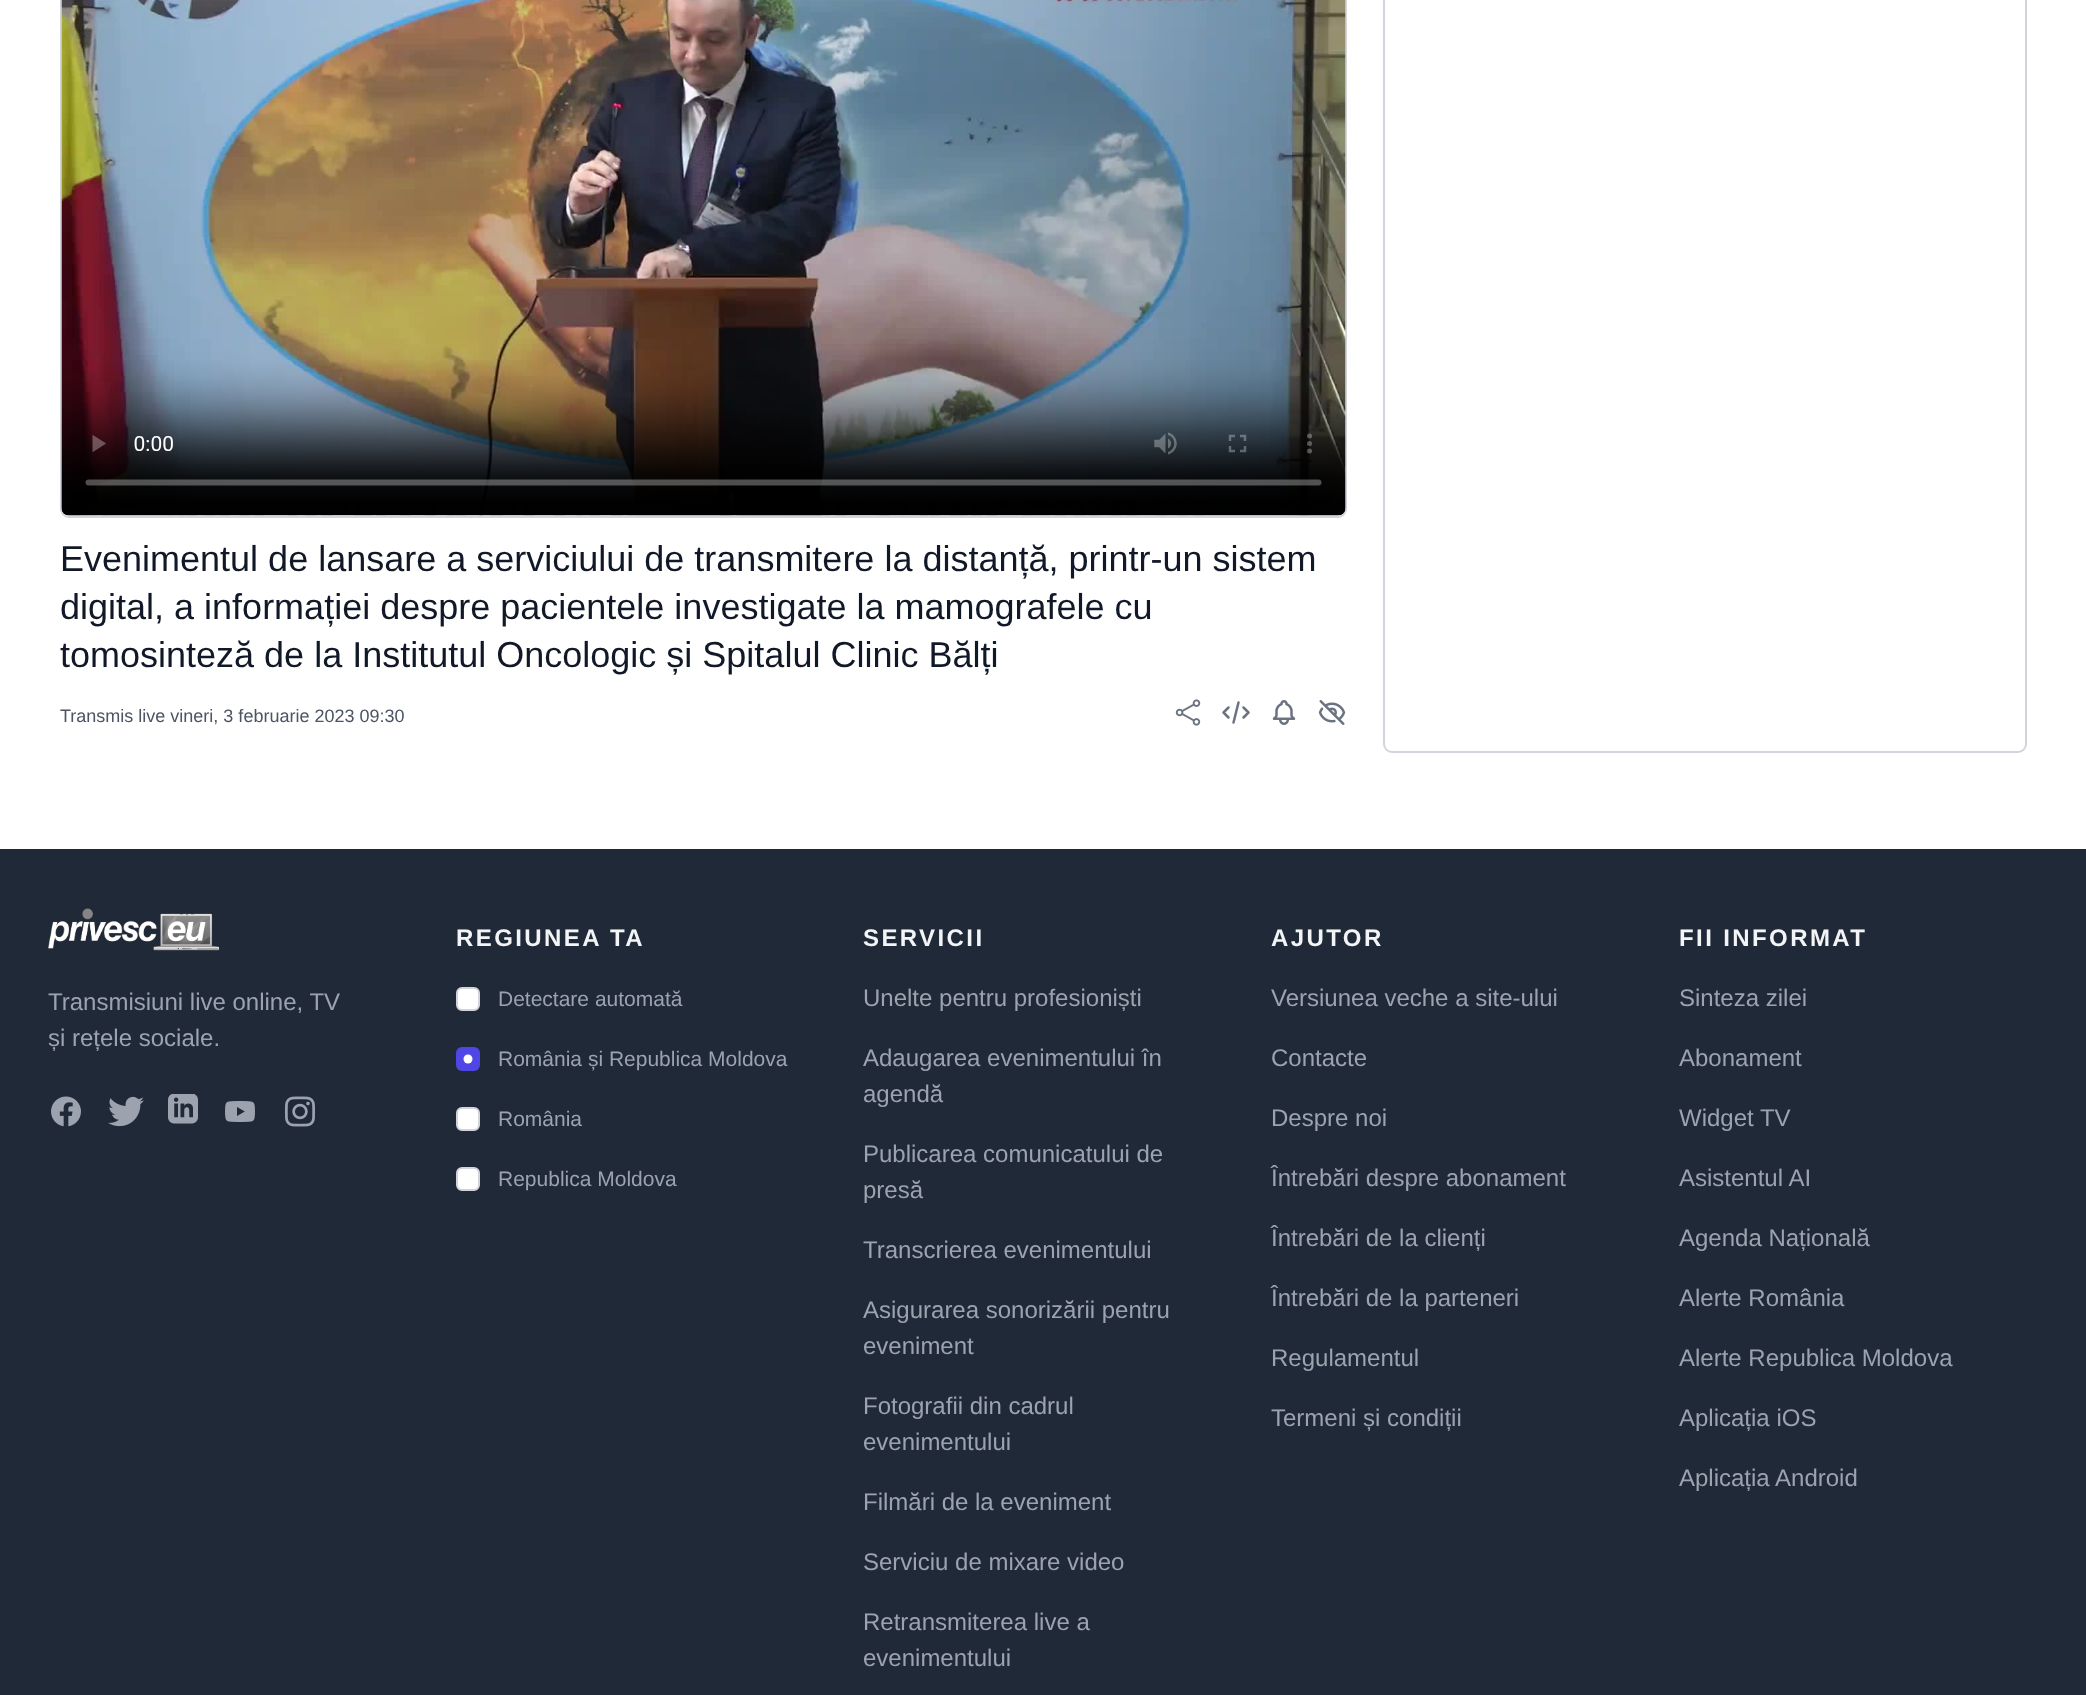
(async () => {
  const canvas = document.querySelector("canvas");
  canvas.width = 2086;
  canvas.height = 1695;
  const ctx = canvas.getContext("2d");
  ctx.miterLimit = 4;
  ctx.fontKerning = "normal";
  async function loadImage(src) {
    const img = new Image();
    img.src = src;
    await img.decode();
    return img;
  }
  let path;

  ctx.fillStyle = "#ffffff";
  ctx.fillRect(0, 0, 2086, 1695);
  ctx.beginPath();
  ctx.roundRect(61, -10, 1285, 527, 8);
  ctx.strokeStyle = "#d1d5db";
  ctx.lineWidth = 2;
  ctx.stroke();
  ctx.drawImage(await loadImage("img/1.png"), 61, 0, 1285, 516);
  ctx.drawImage(await loadImage("img/2.png"), 1175, 699, 26, 27);
  path = new Path2D("M1233.5 722.5L1238.5 702.5M1243.5 707.5L1248.5 712.5L1243.5 717.5M1228.5 717.5L1223.5 712.5L1228.5 707.5");
  ctx.strokeStyle = "#6b7280";
  ctx.lineWidth = 2.5;
  ctx.lineCap = "round";
  ctx.lineJoin = "round";
  ctx.stroke(path);
  ctx.drawImage(await loadImage("img/3.png"), 1272, 700, 24, 25);
  ctx.drawImage(await loadImage("img/4.png"), 1318, 700, 28, 25);
  ctx.beginPath();
  ctx.roundRect(1384, -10, 642, 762, 8);
  ctx.strokeStyle = "#d1d5db";
  ctx.lineWidth = 2;
  ctx.lineJoin = "miter";
  ctx.stroke();
  ctx.fillStyle = "#1f2937";
  ctx.fillRect(0, 849, 2086, 846);
  ctx.drawImage(await loadImage("img/5.png"), 48, 908, 171, 43);
  ctx.drawImage(await loadImage("img/6.png"), 51, 1096, 30, 31);
  ctx.drawImage(await loadImage("img/7.png"), 108, 1096, 36, 31);
  ctx.drawImage(await loadImage("img/8.png"), 168, 1094, 30, 30);
  ctx.drawImage(await loadImage("img/9.png"), 225, 1101, 30, 21);
  ctx.drawImage(await loadImage("img/10.png"), 285, 1096, 30, 31);
  ctx.fillStyle = "#ffffff";
  ctx.beginPath();
  ctx.roundRect(457, 988, 22, 22, 5);
  ctx.fill();
  ctx.stroke();
  ctx.fillStyle = "#4f46e5";
  ctx.beginPath();
  ctx.roundRect(456, 1047, 24, 24, 6);
  ctx.fill();
  ctx.fillStyle = "#ffffff";
  ctx.beginPath();
  ctx.arc(468, 1059, 4.5, 0, Math.PI * 2);
  ctx.fill();
  ctx.beginPath();
  ctx.roundRect(457, 1108, 22, 22, 5);
  ctx.fill();
  ctx.stroke();
  ctx.beginPath();
  ctx.roundRect(457, 1168, 22, 22, 5);
  ctx.fill();
  ctx.stroke();
  ctx.font = "36px Liberation Sans";
  ctx.fillStyle = "#111827";
  for (const [text, x, y] of [
    ["Evenimentul de lansare a serviciului de transmitere la distanță, printr-un sistem", 60, 571],
    ["digital, a informației despre pacientele investigate la mamografele cu", 60, 619],
    ["tomosinteză de la Institutul Oncologic și Spitalul Clinic Bălți", 60, 667],
  ]) {
    ctx.fillText(text, x, y);
  }
  ctx.font = "18px Liberation Sans";
  ctx.fillStyle = "#4b5563";
  ctx.fillText("Transmis live vineri, 3 februarie 2023 09:30", 60, 722);
  ctx.font = "24px Liberation Sans";
  ctx.fillStyle = "#9ca3af";
  ctx.fillText("Transmisiuni live online, TV", 48, 1010);
  ctx.fillText("și rețele sociale.", 48, 1046);
  ctx.letterSpacing = "2.4px";
  ctx.font = "bold 24px Liberation Sans";
  ctx.fillStyle = "#f3f4f6";
  ctx.fillText("REGIUNEA TA", 456, 946);
  ctx.letterSpacing = "0px";
  ctx.font = "21px Liberation Sans";
  ctx.fillStyle = "#9ca3af";
  for (const [text, x, y] of [
    ["Detectare automată", 498, 1006],
    ["România și Republica Moldova", 498, 1066],
    ["România", 498, 1126],
    ["Republica Moldova", 498, 1186],
  ]) {
    ctx.fillText(text, x, y);
  }
  ctx.letterSpacing = "2.4px";
  ctx.font = "bold 24px Liberation Sans";
  ctx.fillStyle = "#f3f4f6";
  ctx.fillText("SERVICII", 863, 946);
  ctx.letterSpacing = "0px";
  ctx.font = "24px Liberation Sans";
  ctx.fillStyle = "#9ca3af";
  for (const [text, x, y] of [
    ["Unelte pentru profesioniști", 863, 1006],
    ["Adaugarea evenimentului în", 863, 1066],
    ["agendă", 863, 1102],
    ["Publicarea comunicatului de", 863, 1162],
    ["presă", 863, 1198],
    ["Transcrierea evenimentului", 863, 1258],
    ["Asigurarea sonorizării pentru", 863, 1318],
    ["eveniment", 863, 1354],
    ["Fotografii din cadrul", 863, 1414],
    ["evenimentului", 863, 1450],
    ["Filmări de la eveniment", 863, 1510],
    ["Serviciu de mixare video", 863, 1570],
    ["Retransmiterea live a", 863, 1630],
    ["evenimentului", 863, 1666],
  ]) {
    ctx.fillText(text, x, y);
  }
  ctx.letterSpacing = "2.4px";
  ctx.font = "bold 24px Liberation Sans";
  ctx.fillStyle = "#f3f4f6";
  ctx.fillText("AJUTOR", 1271, 946);
  ctx.letterSpacing = "0px";
  ctx.font = "24px Liberation Sans";
  ctx.fillStyle = "#9ca3af";
  for (const [text, x, y] of [
    ["Versiunea veche a site-ului", 1271, 1006],
    ["Contacte", 1271, 1066],
    ["Despre noi", 1271, 1126],
    ["Întrebări despre abonament", 1271, 1186],
    ["Întrebări de la clienți", 1271, 1246],
    ["Întrebări de la parteneri", 1271, 1306],
    ["Regulamentul", 1271, 1366],
    ["Termeni și condiții", 1271, 1426],
  ]) {
    ctx.fillText(text, x, y);
  }
  ctx.letterSpacing = "2.4px";
  ctx.font = "bold 24px Liberation Sans";
  ctx.fillStyle = "#f3f4f6";
  ctx.fillText("FII INFORMAT", 1679, 946);
  ctx.letterSpacing = "0px";
  ctx.font = "24px Liberation Sans";
  ctx.fillStyle = "#9ca3af";
  for (const [text, x, y] of [
    ["Sinteza zilei", 1679, 1006],
    ["Abonament", 1679, 1066],
    ["Widget TV", 1679, 1126],
    ["Asistentul AI", 1679, 1186],
    ["Agenda Națională", 1679, 1246],
    ["Alerte România", 1679, 1306],
    ["Alerte Republica Moldova", 1679, 1366],
    ["Aplicația iOS", 1679, 1426],
    ["Aplicația Android", 1679, 1486],
  ]) {
    ctx.fillText(text, x, y);
  }
})();
